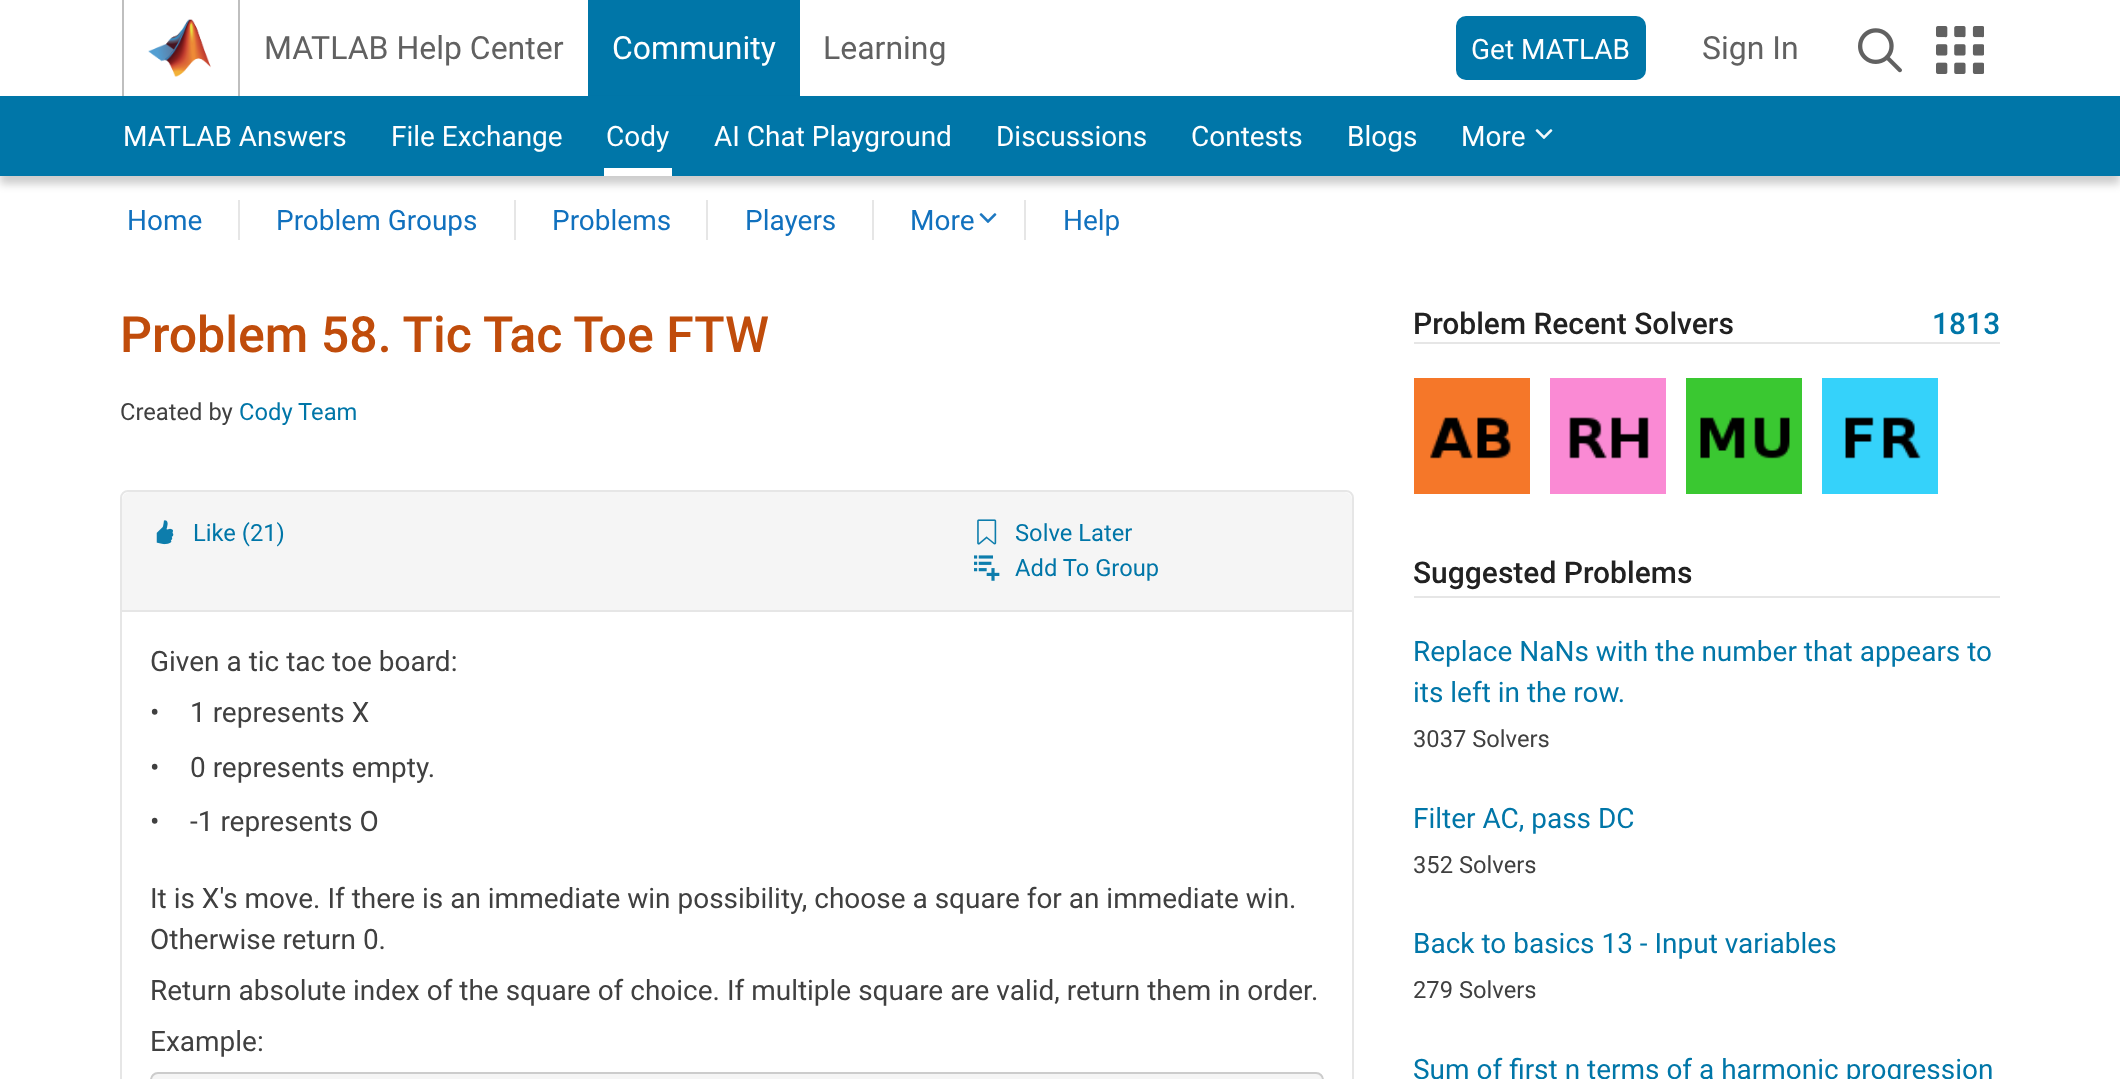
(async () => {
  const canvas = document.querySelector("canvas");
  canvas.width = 2120;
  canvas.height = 1079;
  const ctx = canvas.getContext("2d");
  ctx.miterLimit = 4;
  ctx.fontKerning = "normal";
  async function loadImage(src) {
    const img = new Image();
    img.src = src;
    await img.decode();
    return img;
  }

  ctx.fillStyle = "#ffffff";
  ctx.fillRect(0, 0, 2120, 1079);
  ctx.fillStyle = "#bfbfbf";
  ctx.fillRect(238, 0, 2, 96);
  ctx.fillRect(122, 0, 2, 96);
  ctx.drawImage(await loadImage("img/1.png"), 148, 19, 63, 58);
  ctx.fillStyle = "#0076a8";
  ctx.fillRect(588, 0, 212, 96);
  ctx.beginPath();
  ctx.roundRect(1457, 17, 188, 62, 9);
  ctx.fill();
  ctx.strokeStyle = "#0076a8";
  ctx.lineWidth = 2;
  ctx.stroke();
  ctx.drawImage(await loadImage("img/2.png"), 1858, 28, 44, 45);
  ctx.drawImage(await loadImage("img/3.png"), 1936, 26, 48, 48);
  ctx.fillStyle = "rgba(0, 0, 0, 0.2)";
  ctx.filter = "blur(4px)";
  ctx.beginPath();
  ctx.rect(0, 104, 2120, 80);
  ctx.fill();
  ctx.filter = "none";
  ctx.fillStyle = "#0076a8";
  ctx.fillRect(0, 96, 2120, 80);
  ctx.fillStyle = "#ffffff";
  ctx.fillRect(604, 168, 68, 8);
  ctx.drawImage(await loadImage("img/4.png"), 1535, 129, 18, 10);
  for (const [x, y, w, h, color] of [
    [238, 200, 2, 40, "#e6e6e6"],
    [514, 200, 2, 40, "#e6e6e6"],
    [706, 200, 2, 40, "#e6e6e6"],
    [872, 200, 2, 40, "#e6e6e6"],
  ]) {
    ctx.fillStyle = color;
    ctx.fillRect(x, y, w, h);
  }
  ctx.drawImage(await loadImage("img/5.png"), 979, 213, 18, 10);
  ctx.fillRect(1024, 200, 2, 40);
  ctx.beginPath();
  ctx.roundRect(121, 491, 1232, 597, 7);
  ctx.strokeStyle = "#e6e6e6";
  ctx.stroke();
  ctx.fillStyle = "#f5f5f5";
  ctx.beginPath();
  ctx.roundRect(122, 492, 1230, 120, [8, 8, 0, 0]);
  ctx.fill();
  ctx.fillStyle = "#e6e6e6";
  ctx.fillRect(122, 610, 1230, 2);
  ctx.drawImage(await loadImage("img/6.png"), 156, 520, 18, 25);
  ctx.drawImage(await loadImage("img/7.png"), 977, 519, 20, 26);
  ctx.drawImage(await loadImage("img/8.png"), 974, 555, 26, 26);
  ctx.fillStyle = "#f5f5f5";
  ctx.beginPath();
  ctx.roundRect(151, 1073, 1172, 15, 7);
  ctx.fill();
  ctx.strokeStyle = "#cccccc";
  ctx.stroke();
  ctx.fillStyle = "#e6e6e6";
  ctx.fillRect(1414, 342, 586, 2);
  ctx.drawImage(await loadImage("img/9.png"), 1414, 378, 116, 116);
  ctx.drawImage(await loadImage("img/10.png"), 1550, 378, 116, 116);
  ctx.drawImage(await loadImage("img/11.png"), 1686, 378, 116, 116);
  ctx.drawImage(await loadImage("img/12.png"), 1822, 378, 116, 116);
  ctx.fillRect(1414, 596, 586, 2);
  ctx.font = "32px Roboto";
  ctx.fillStyle = "#616161";
  ctx.fillText("MATLAB Help Center", 264, 59);
  ctx.fillStyle = "#ffffff";
  ctx.fillText("Community", 612, 59);
  ctx.fillStyle = "#616161";
  ctx.fillText("Learning", 823, 59);
  ctx.font = "28px Roboto";
  ctx.fillStyle = "#ffffff";
  ctx.fillText("Get MATLAB", 1471, 59);
  ctx.font = "32px Roboto";
  ctx.fillStyle = "#616161";
  ctx.fillText("Sign In", 1702, 59);
  ctx.font = "28px Roboto";
  ctx.fillStyle = "#ffffff";
  for (const [text, x, y] of [
    ["MATLAB Answers", 123, 146],
    ["File Exchange", 391, 146],
    ["Cody", 606, 146],
    ["AI Chat Playground", 714, 146],
    ["Discussions", 996, 146],
    ["Contests", 1191, 146],
    ["Blogs", 1347, 146],
    ["More", 1461, 146],
  ]) {
    ctx.fillText(text, x, y);
  }
  ctx.fillStyle = "#1171be";
  for (const [text, x, y] of [
    ["Home", 127, 230],
    ["Problem Groups", 276, 230],
    ["Problems", 552, 230],
    ["Players", 745, 230],
    ["More", 910, 230],
    ["Help", 1063, 230],
  ]) {
    ctx.fillText(text, x, y);
  }
  ctx.font = "500 50px Roboto";
  ctx.fillStyle = "#c04c0b";
  ctx.fillText("Problem 58. Tic Tac Toe FTW", 120, 352);
  ctx.font = "23.75px Roboto";
  ctx.fillStyle = "#404040";
  ctx.fillText("Created by", 120, 420);
  ctx.fillStyle = "#0076a8";
  for (const [text, x, y] of [
    ["Cody Team", 239, 420],
    ["Like (21)", 193, 541],
    ["Solve Later", 1015, 541],
    ["Add To Group", 1015, 576],
  ]) {
    ctx.fillText(text, x, y);
  }
  ctx.font = "28px Roboto";
  ctx.fillStyle = "#404040";
  for (const [text, x, y] of [
    ["Given a tic tac toe board:", 150, 671],
    ["•", 150, 722],
    ["1 represents X", 190, 722],
    ["•", 150, 777],
    ["0 represents empty.", 190, 777],
    ["•", 150, 831],
    ["-1 represents O", 190, 831],
    ["It is X's move. If there is an immediate win possibility, choose a square for an immediate win.", 150, 908],
    ["Otherwise return 0.", 150, 949],
    ["Return absolute index of the square of choice. If multiple square are valid, return them in order.", 150, 1000],
    ["Example:", 150, 1051],
  ]) {
    ctx.fillText(text, x, y);
  }
  ctx.font = "500 30px Roboto";
  ctx.fillStyle = "#212121";
  ctx.fillText("Problem Recent Solvers", 1413, 334);
  ctx.fillStyle = "#0076a8";
  ctx.fillText("1813", 1932, 334);
  ctx.fillStyle = "#212121";
  ctx.fillText("Suggested Problems", 1413, 583);
  ctx.font = "28px Roboto";
  ctx.fillStyle = "#0076a8";
  ctx.fillText("Replace NaNs with the number that appears to", 1413, 661);
  ctx.fillText("its left in the row.", 1413, 702);
  ctx.font = "23.75px Roboto";
  ctx.fillStyle = "#404040";
  ctx.fillText("3037 Solvers", 1413, 747);
  ctx.font = "28px Roboto";
  ctx.fillStyle = "#0076a8";
  ctx.fillText("Filter AC, pass DC", 1413, 828);
  ctx.font = "23.75px Roboto";
  ctx.fillStyle = "#404040";
  ctx.fillText("352 Solvers", 1413, 873);
  ctx.font = "28px Roboto";
  ctx.fillStyle = "#0076a8";
  ctx.fillText("Back to basics 13 - Input variables", 1413, 953);
  ctx.font = "23.75px Roboto";
  ctx.fillStyle = "#404040";
  ctx.fillText("279 Solvers", 1413, 998);
  ctx.font = "28px Roboto";
  ctx.fillStyle = "#0076a8";
  ctx.fillText("Sum of first n terms of a harmonic progression", 1413, 1079);
})();
